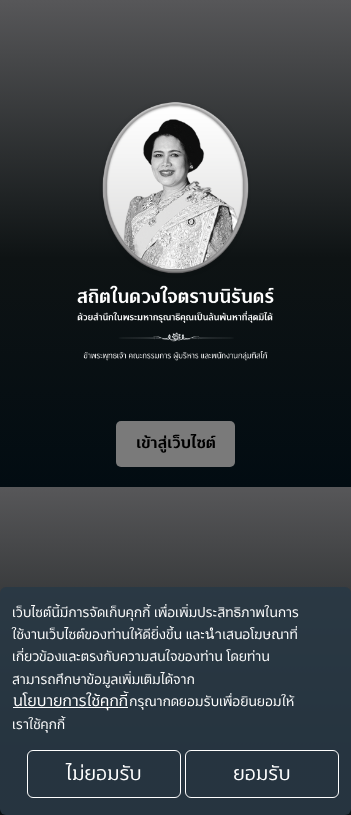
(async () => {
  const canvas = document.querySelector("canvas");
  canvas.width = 351;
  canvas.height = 815;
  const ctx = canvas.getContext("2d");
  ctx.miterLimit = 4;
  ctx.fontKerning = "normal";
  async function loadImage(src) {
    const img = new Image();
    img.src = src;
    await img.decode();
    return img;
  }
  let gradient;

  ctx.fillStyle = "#ffffff";
  ctx.fillRect(0, 0, 351, 815);
  gradient = ctx.createLinearGradient(175, 0, 176, 487);
  gradient.addColorStop(0, "#575759");
  gradient.addColorStop(0.53, "#0e1314");
  gradient.addColorStop(1, "#020c12");
  ctx.fillStyle = gradient;
  ctx.fillRect(0, 0, 351, 487);
  gradient = ctx.createLinearGradient(175, 487, 176, 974);
  gradient.addColorStop(0, "#575759");
  gradient.addColorStop(0.53, "#0e1314");
  gradient.addColorStop(1, "#020c12");
  ctx.fillStyle = gradient;
  ctx.fillRect(0, 487, 351, 328);
  ctx.drawImage(await loadImage("img/1.png"), 77, 102, 197, 259);
  ctx.fillStyle = "#7a7a7a";
  ctx.beginPath();
  ctx.roundRect(116, 421, 119, 46, 5);
  ctx.fill();
  ctx.fillStyle = "rgba(41, 56, 69, 0.9)";
  ctx.beginPath();
  ctx.roundRect(0, 587, 351, 228, 6);
  ctx.fill();
  ctx.fillStyle = "#ffffff";
  ctx.fillRect(13, 707, 115, 1);
  ctx.beginPath();
  ctx.roundRect(27.5, 750.5, 153, 47, 5.5);
  ctx.strokeStyle = "#ffffff";
  ctx.stroke();
  ctx.beginPath();
  ctx.roundRect(185.5, 750.5, 153, 47, 5.5);
  ctx.stroke();
  ctx.font = "bold 16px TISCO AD";
  ctx.fillStyle = "#000000";
  ctx.fillText("เข้าสู่เว็บไซต์", 136, 448);
  ctx.font = "14px TISCO AD";
  ctx.fillStyle = "#ffffff";
  for (const [text, x, y] of [
    ["เว็บไซต์นี้มีการจัดเก็บคุกกี้ เพื่อเพิ่มประสิทธิภาพในการ", 12, 617],
    ["ใช้งานเว็บไซต์ของท่านให้ดียิ่งขึ้น และนำเสนอโฆษณาที่", 12, 639],
    ["เกี่ยวข้องและตรงกับความสนใจของท่าน โดยท่าน", 12, 661],
    ["สามารถศึกษาข้อมูลเพิ่มเติมได้จาก", 12, 684],
  ]) {
    ctx.fillText(text, x, y);
  }
  ctx.font = "16px TISCO AD";
  ctx.fillText("นโยบายการใช้คุกกี้", 13, 706);
  ctx.font = "14px TISCO AD";
  ctx.fillText("กรุณากดยอมรับเพื่อยินยอมให้", 129, 706);
  ctx.fillText("เราใช้คุกกี้", 12, 729);
  ctx.font = "20px TISCO AD";
  ctx.fillText("ไม่ยอมรับ", 66, 780);
  ctx.fillText("ยอมรับ", 233, 780);
})();
